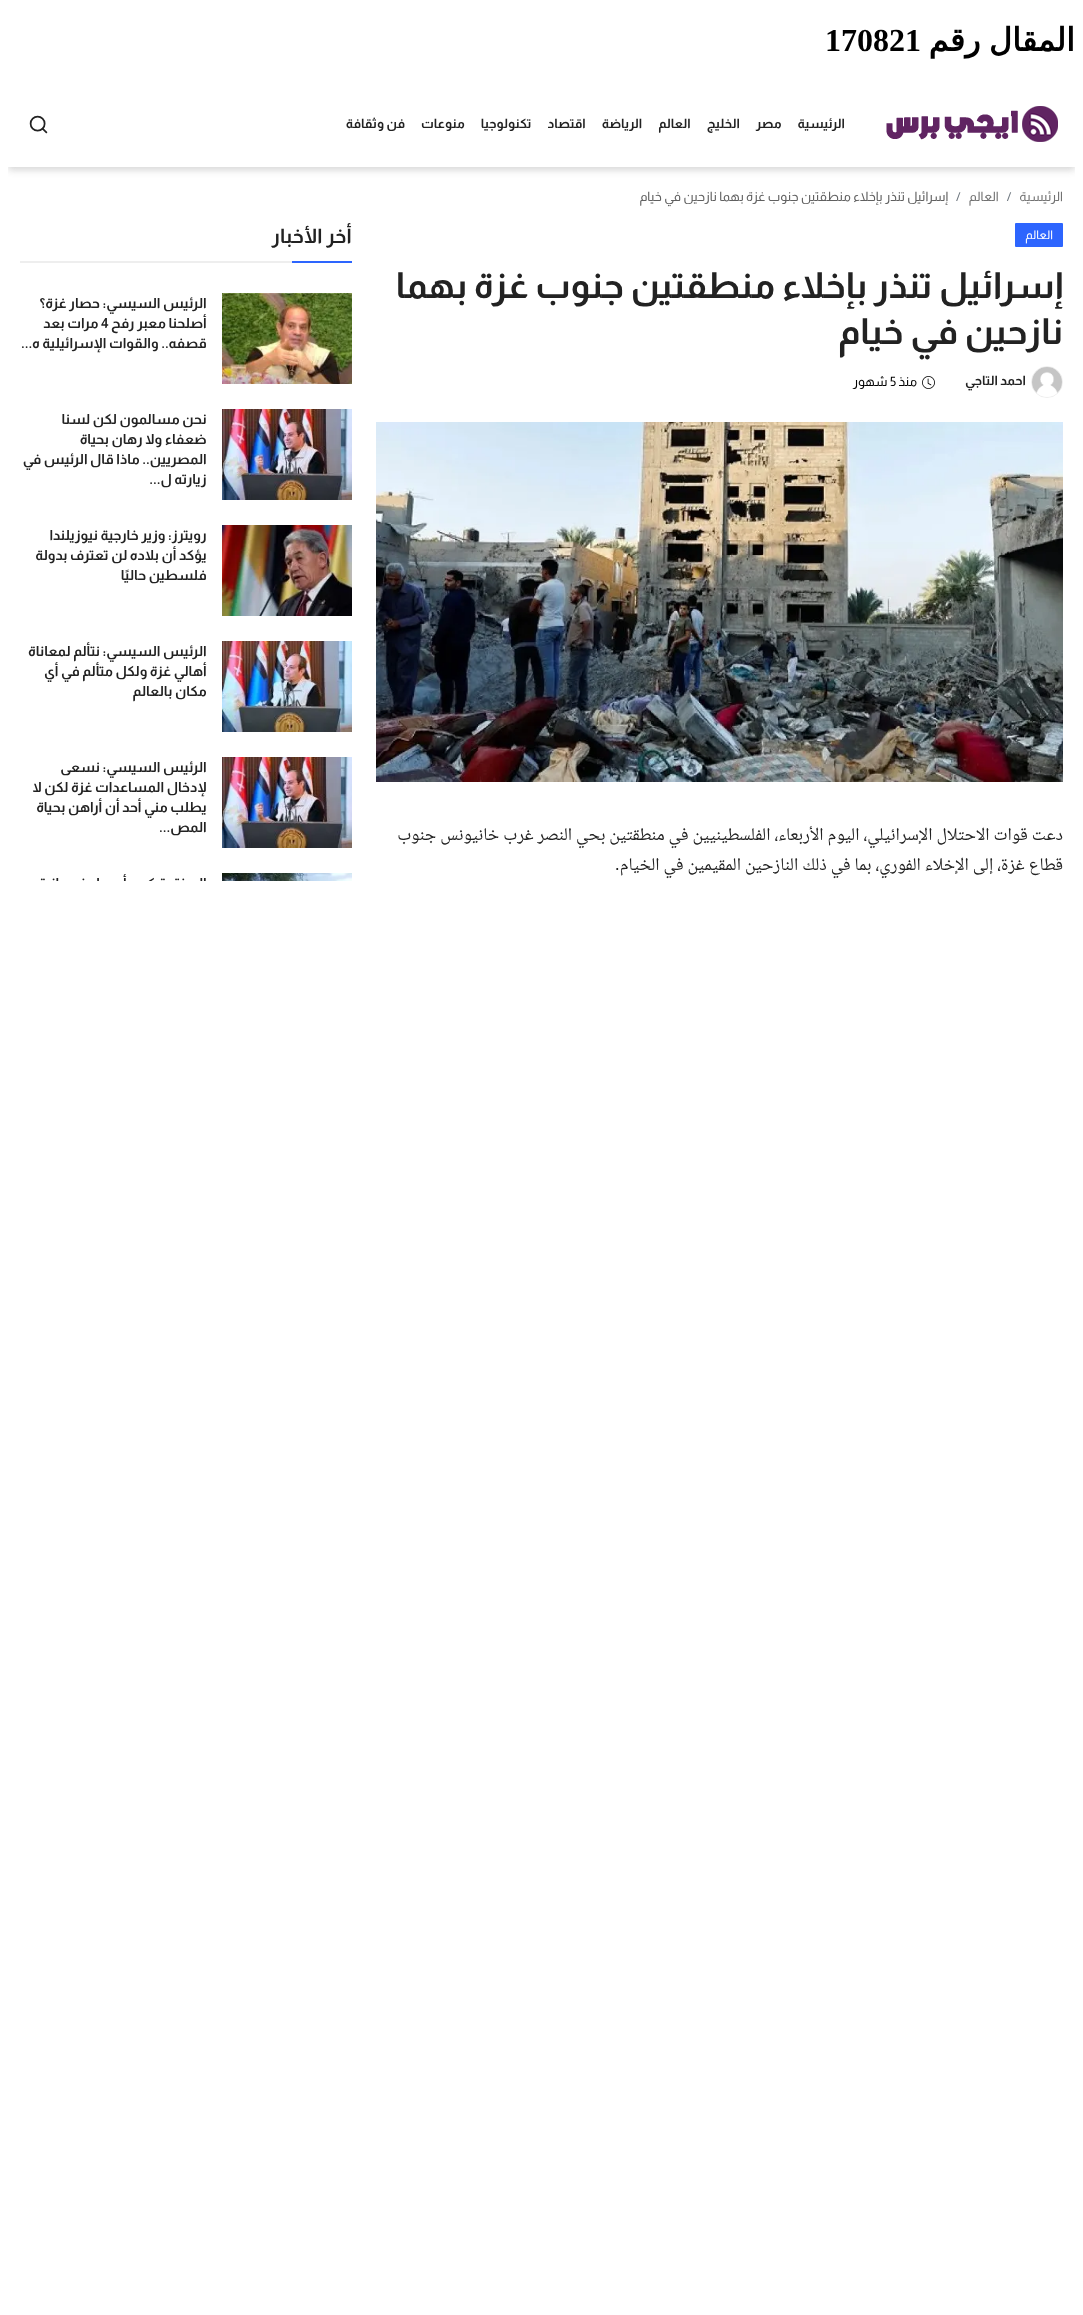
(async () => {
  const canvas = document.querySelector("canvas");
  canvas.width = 1083;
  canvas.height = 2315;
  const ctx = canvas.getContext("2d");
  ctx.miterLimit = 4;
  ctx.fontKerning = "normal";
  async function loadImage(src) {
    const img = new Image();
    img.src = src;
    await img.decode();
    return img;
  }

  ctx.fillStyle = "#ffffff";
  ctx.fillRect(0, 0, 1083, 2315);
  ctx.drawImage(await loadImage("img/1.png"), 8, 106, 1067, 775);
  ctx.wordSpacing = "-2px";
  ctx.direction = "rtl";
  ctx.font = "bold 32px DejaVu Sans";
  ctx.fillStyle = "#000000";
  ctx.fillText("المقال رقم", 1075, 51);
  ctx.wordSpacing = "0px";
  ctx.direction = "ltr";
  ctx.font = "bold 32px Liberation Serif";
  ctx.fillText("170821", 825, 51);
})();
